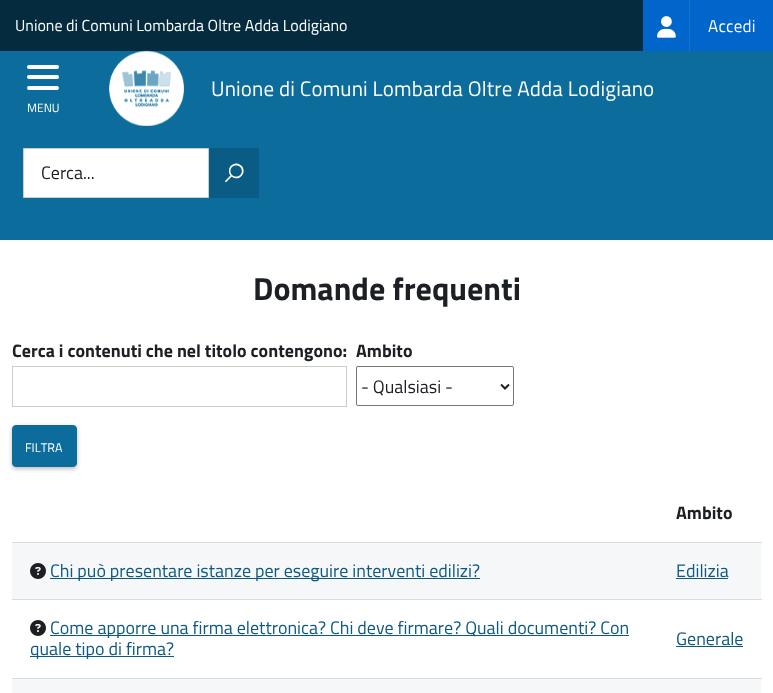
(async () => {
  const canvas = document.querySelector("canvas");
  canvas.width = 773;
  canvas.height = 693;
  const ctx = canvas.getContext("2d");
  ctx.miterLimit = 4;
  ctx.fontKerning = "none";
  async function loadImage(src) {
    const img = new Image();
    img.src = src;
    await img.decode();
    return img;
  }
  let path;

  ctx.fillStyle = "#ffffff";
  ctx.fillRect(0, 0, 773, 693);
  for (const [x, y, w, h, color] of [
    [0, 0, 643, 51, "#052b3e"],
    [643, 0, 46, 51, "#0066cc"],
    [689, 0, 1, 51, "#1a75d1"],
  ]) {
    ctx.fillStyle = color;
    ctx.fillRect(x, y, w, h);
  }
  ctx.drawImage(await loadImage("img/1.png"), 657, 16, 19, 22);
  ctx.fillStyle = "#0066cc";
  ctx.fillRect(690, 0, 83, 51);
  ctx.fillStyle = "#0c6c9b";
  ctx.fillRect(0, 51, 773, 189);
  ctx.drawImage(await loadImage("img/2.png"), 109, 50, 75, 76);
  ctx.fillStyle = "#ffffff";
  ctx.beginPath();
  ctx.roundRect(27, 75, 32, 4, 2);
  ctx.fill();
  ctx.beginPath();
  ctx.roundRect(27, 65, 32, 4, 2);
  ctx.fill();
  ctx.beginPath();
  ctx.roundRect(27, 86, 32, 4, 2);
  ctx.fill();
  ctx.beginPath();
  ctx.rect(23.5, 148.5, 185, 49);
  ctx.fill();
  ctx.strokeStyle = "#cccccc";
  ctx.stroke();
  ctx.fillStyle = "#0a5c85";
  ctx.fillRect(209, 148, 50, 50);
  ctx.strokeRect(12.5, 366.5, 334, 40);
  ctx.beginPath();
  ctx.roundRect(356.5, 366.5, 157, 39, 1.5);
  ctx.strokeStyle = "#767676";
  ctx.stroke();
  path = new Path2D("M501 384.5L505 388.5L509 384.5");
  ctx.strokeStyle = "#1c2024";
  ctx.lineWidth = 2;
  ctx.stroke(path);
  ctx.fillStyle = "#bdbdbd";
  ctx.filter = "blur(2px)";
  ctx.beginPath();
  ctx.roundRect(12, 427, 65, 42, 4);
  ctx.fill();
  ctx.filter = "none";
  ctx.fillStyle = "#0c6c9b";
  ctx.beginPath();
  ctx.roundRect(12.5, 425.5, 64, 41, 3.5);
  ctx.fill();
  ctx.strokeStyle = "#0c6c9b";
  ctx.lineWidth = 1;
  ctx.stroke();
  for (const [x, y, w, h, color] of [
    [12, 542, 750, 1, "#d6dce3"],
    [12, 543, 749, 56, "#f6f7f9"],
    [12, 599, 750, 1, "#d6dce3"],
  ]) {
    ctx.fillStyle = color;
    ctx.fillRect(x, y, w, h);
  }
  ctx.drawImage(await loadImage("img/3.png"), 30, 563, 16, 16);
  for (const [x, y, w, h, color] of [
    [50, 578, 430, 1, "#0d5980"],
    [676, 578, 52, 1, "#0d5980"],
    [12, 678, 750, 1, "#d6dce3"],
  ]) {
    ctx.fillStyle = color;
    ctx.fillRect(x, y, w, h);
  }
  ctx.drawImage(await loadImage("img/4.png"), 30, 620, 16, 16);
  for (const [x, y, w, h, color] of [
    [50, 635, 579, 1, "#0d5980"],
    [30, 656, 144, 1, "#0d5980"],
    [676, 646, 67, 1, "#0d5980"],
    [12, 679, 749, 14, "#f6f7f9"],
  ]) {
    ctx.fillStyle = color;
    ctx.fillRect(x, y, w, h);
  }
  ctx.font = "16px Titillium Web";
  ctx.fillStyle = "#ffffff";
  ctx.fillText("Unione di Comuni Lombarda Oltre Adda Lodigiano", 15, 31);
  ctx.letterSpacing = "0.25px";
  ctx.font = "17px Titillium Web";
  ctx.fillText("Accedi", 708, 32);
  ctx.letterSpacing = "0.15px";
  ctx.font = "21px Titillium Web";
  ctx.fillText("Unione di Comuni Lombarda Oltre Adda Lodigiano", 211, 96);
  ctx.letterSpacing = "0px";
  ctx.font = "12px Titillium Web";
  ctx.fillText("MENU", 27, 112);
  ctx.font = "bold 18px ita";
  ctx.fillText("🔍", 225, 181);
  ctx.font = "18px Titillium Web";
  ctx.fillStyle = "#1c2024";
  ctx.fillText("Cerca...", 41, 179);
  ctx.font = "bold 32px Titillium Web";
  ctx.fillText("Domande frequenti", 253, 300);
  ctx.font = "bold 18px Titillium Web";
  ctx.fillText("Cerca i contenuti che nel titolo contengono:", 12, 357);
  ctx.fillText("Ambito", 356, 357);
  ctx.font = "18px Titillium Web";
  ctx.fillText("- Qualsiasi -", 361, 393);
  ctx.font = "12.5px Titillium Web";
  ctx.fillStyle = "#ffffff";
  ctx.fillText("FILTRA", 25, 452);
  ctx.font = "bold 18px Titillium Web";
  ctx.fillStyle = "#1c2024";
  ctx.fillText("Ambito", 676, 519);
  ctx.font = "18px Titillium Web";
  ctx.fillStyle = "#0d5980";
  for (const [text, x, y] of [
    ["Chi può presentare istanze per eseguire interventi edilizi?", 50, 577],
    ["Edilizia", 676, 577],
    ["Come apporre una firma elettronica? Chi deve firmare? Quali documenti? Con", 50, 634],
    ["quale tipo di firma?", 30, 655],
    ["Generale", 676, 645],
  ]) {
    ctx.fillText(text, x, y);
  }
})();
